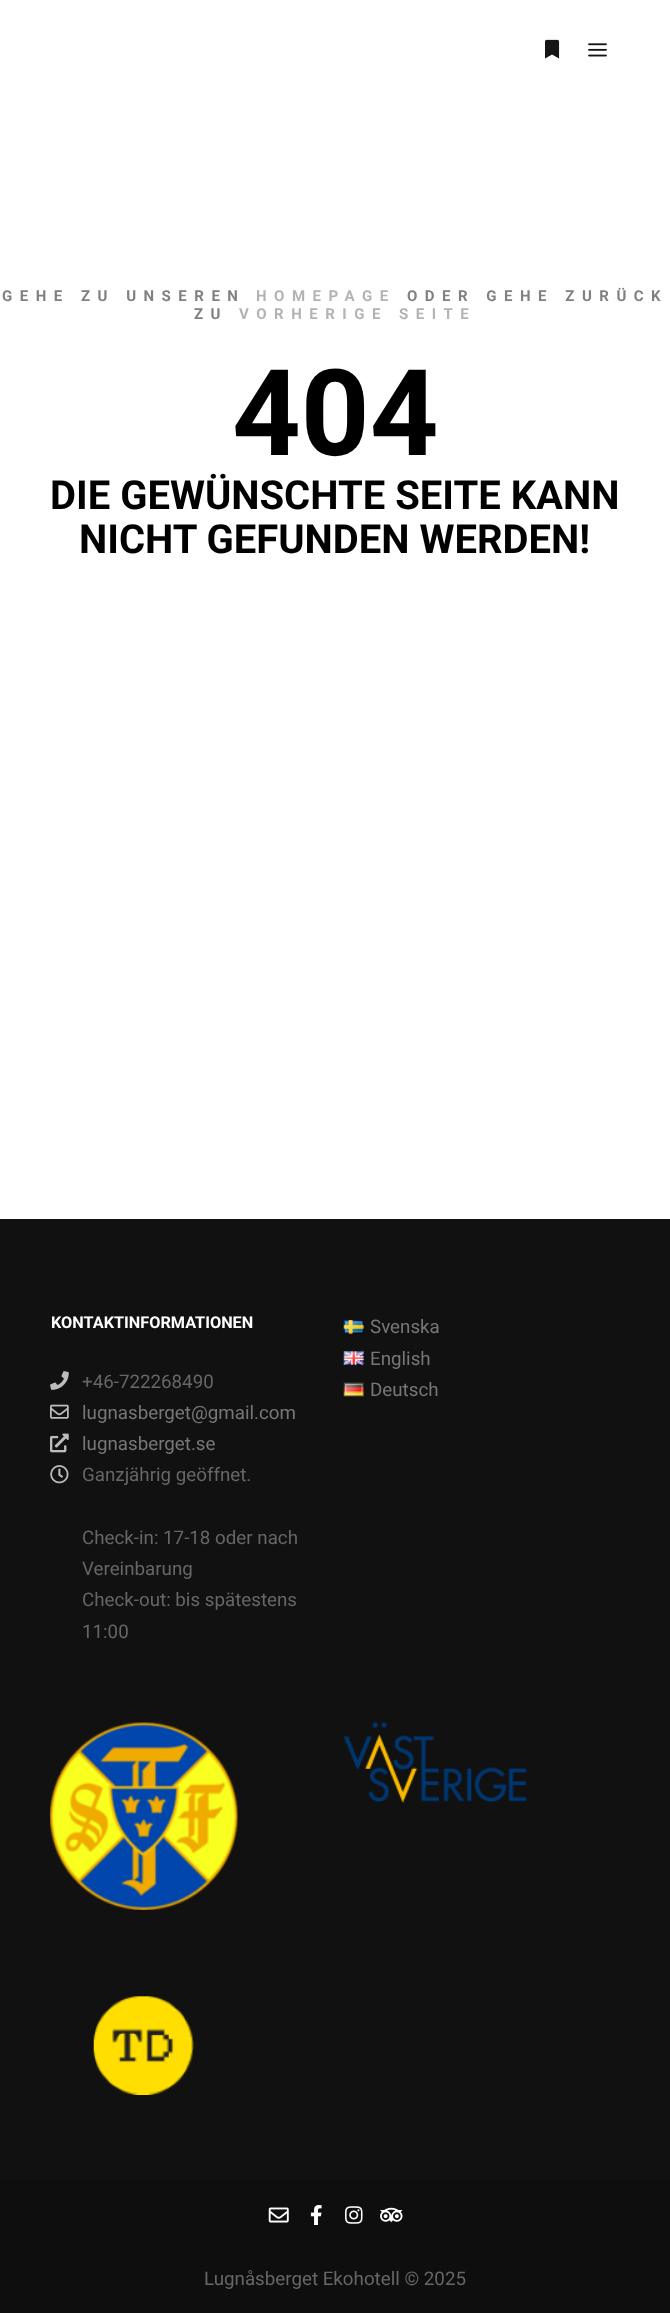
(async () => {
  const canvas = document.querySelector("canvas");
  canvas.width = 670;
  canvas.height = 2313;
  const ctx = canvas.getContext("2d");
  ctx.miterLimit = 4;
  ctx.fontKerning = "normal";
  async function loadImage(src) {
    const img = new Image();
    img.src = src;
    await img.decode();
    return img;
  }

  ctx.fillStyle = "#ffffff";
  ctx.fillRect(0, 0, 670, 2313);
  ctx.drawImage(await loadImage("img/1.png"), 545, 39, 15, 20);
  ctx.drawImage(await loadImage("img/2.png"), 588, 43, 19, 14);
  ctx.fillStyle = "#111111";
  ctx.fillRect(0, 1219, 670, 961);
  ctx.drawImage(await loadImage("img/3.png"), 50, 1371, 19, 19);
  ctx.drawImage(await loadImage("img/4.png"), 50, 1404, 19, 15);
  ctx.drawImage(await loadImage("img/5.png"), 50, 1433, 19, 20);
  ctx.drawImage(await loadImage("img/6.png"), 50, 1465, 19, 19);
  ctx.drawImage(await loadImage("img/7.png"), 343, 1320, 21, 14);
  ctx.drawImage(await loadImage("img/8.png"), 343, 1351, 21, 14);
  ctx.drawImage(await loadImage("img/9.png"), 343, 1382, 21, 15);
  ctx.drawImage(await loadImage("img/10.png"), 50, 1722, 188, 188);
  ctx.drawImage(await loadImage("img/11.png"), 343, 1722, 184, 81);
  ctx.drawImage(await loadImage("img/12.png"), 93, 1996, 101, 99);
  ctx.fillStyle = "#0e0e0e";
  ctx.fillRect(0, 2180, 670, 133);
  ctx.drawImage(await loadImage("img/13.png"), 268, 2207, 21, 16);
  ctx.drawImage(await loadImage("img/14.png"), 310, 2205, 12, 20);
  ctx.drawImage(await loadImage("img/15.png"), 345, 2206, 18, 18);
  ctx.drawImage(await loadImage("img/16.png"), 380, 2207, 23, 16);
  ctx.letterSpacing = "7.5px";
  ctx.font = "bold 15px Roboto";
  ctx.fillStyle = "#808080";
  ctx.fillText("GEHE ZU UNSEREN", 2, 301);
  ctx.fillStyle = "#b3b3b3";
  ctx.fillText("HOMEPAGE", 256, 301);
  ctx.fillStyle = "#808080";
  ctx.fillText("ODER GEHE ZURÜCK", 407, 301);
  ctx.fillText("ZU", 194, 319);
  ctx.fillStyle = "#b3b3b3";
  ctx.fillText("VORHERIGE SEITE", 239, 319);
  ctx.letterSpacing = "0px";
  ctx.font = "bold 120px Roboto";
  ctx.fillStyle = "#000000";
  ctx.fillText("404", 232, 455);
  ctx.font = "bold 40px Roboto";
  ctx.fillText("DIE GEWÜNSCHTE SEITE KANN", 50, 509);
  ctx.fillText("NICHT GEFUNDEN WERDEN!", 79, 553);
  ctx.font = "bold 16.25px Roboto";
  ctx.fillStyle = "#ffffff";
  ctx.fillText("KONTAKTINFORMATIONEN", 51, 1328);
  ctx.font = "18.75px Roboto";
  ctx.fillStyle = "#666666";
  ctx.fillText("+46-722268490", 82, 1388);
  ctx.fillStyle = "#777777";
  ctx.fillText("lugnasberget@gmail.com", 82, 1419);
  ctx.fillText("lugnasberget.se", 82, 1450);
  ctx.fillStyle = "#666666";
  for (const [text, x, y] of [
    ["Ganzjährig geöffnet.", 82, 1481],
    ["Check-in: 17-18 oder nach", 82, 1544],
    ["Vereinbarung", 82, 1575],
    ["Check-out: bis spätestens", 82, 1606],
    ["11:00", 82, 1638],
  ]) {
    ctx.fillText(text, x, y);
  }
  ctx.fillStyle = "#777777";
  for (const [text, x, y] of [
    ["Svenska", 370, 1333],
    ["English", 370, 1365],
    ["Deutsch", 370, 1396],
  ]) {
    ctx.fillText(text, x, y);
  }
  ctx.fillStyle = "#666666";
  ctx.fillText("Lugnåsberget Ekohotell © 2025", 204, 2285);
})();
